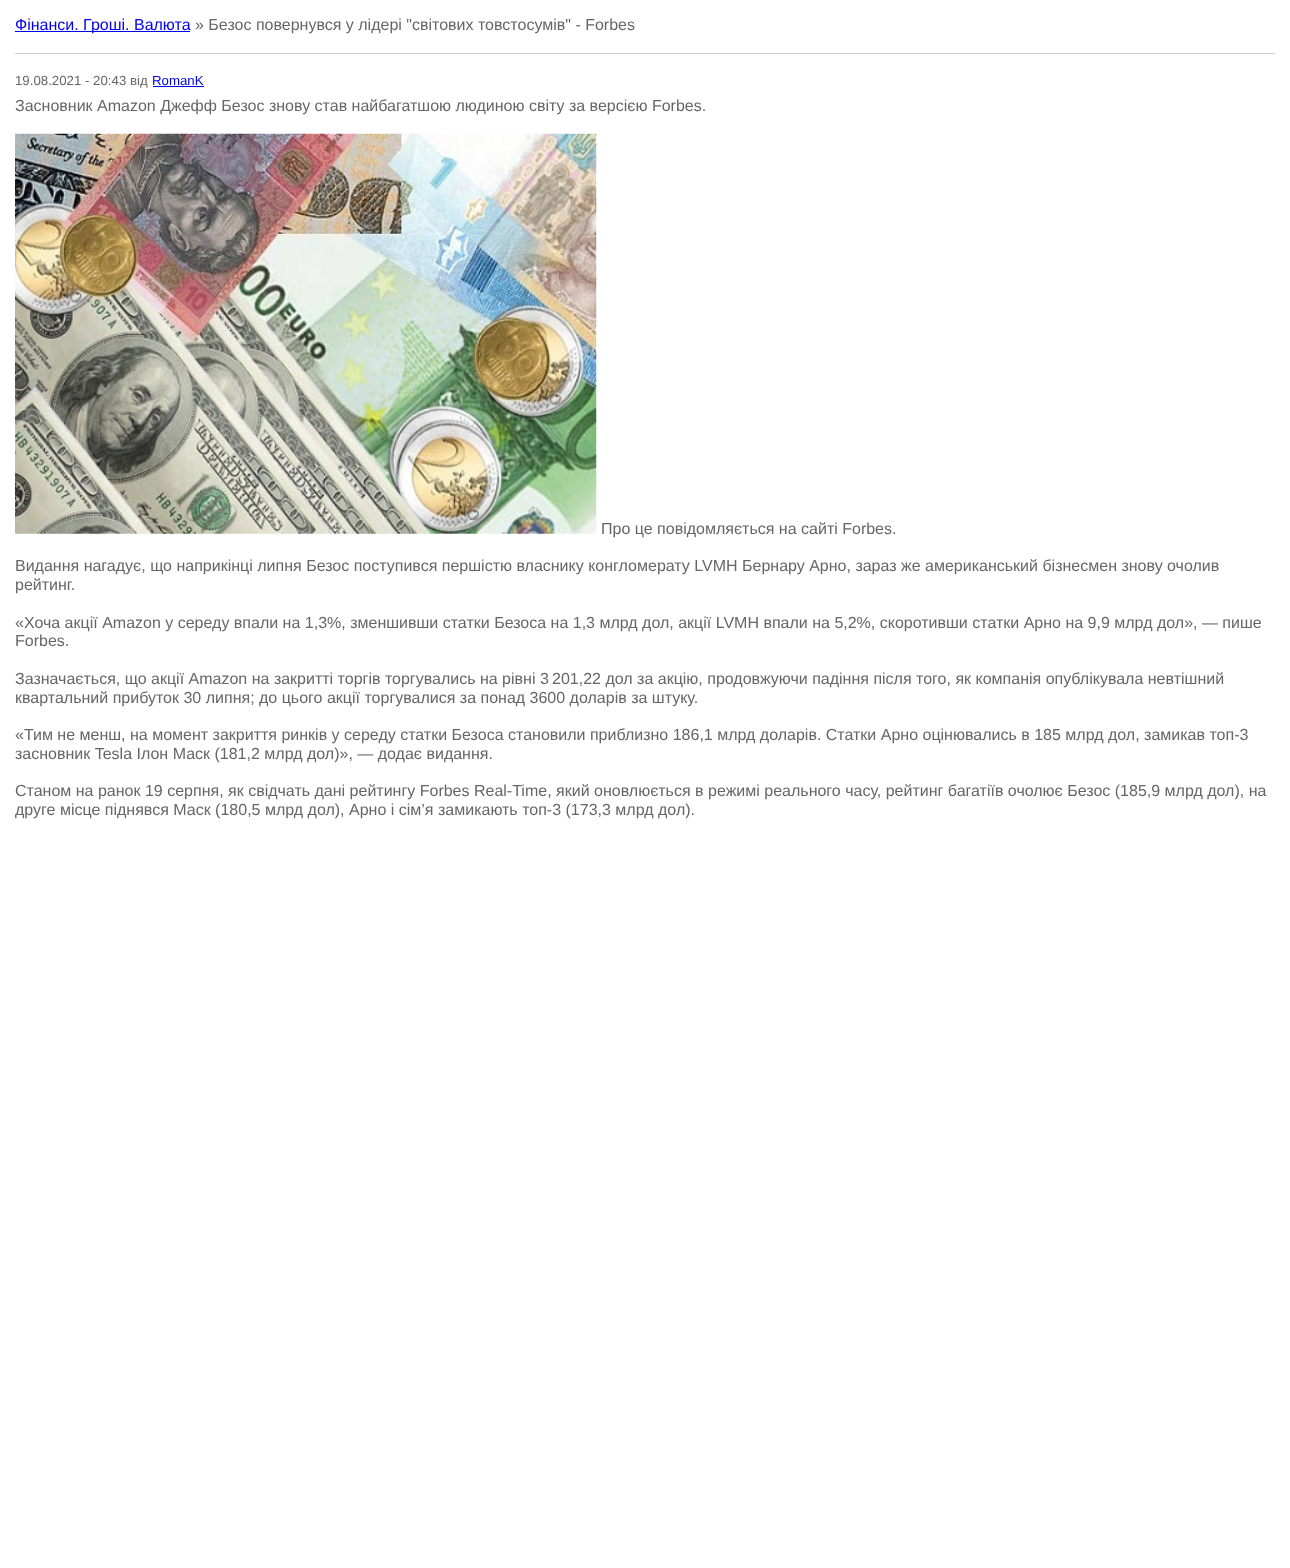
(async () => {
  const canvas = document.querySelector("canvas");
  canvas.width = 1290;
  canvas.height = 1568;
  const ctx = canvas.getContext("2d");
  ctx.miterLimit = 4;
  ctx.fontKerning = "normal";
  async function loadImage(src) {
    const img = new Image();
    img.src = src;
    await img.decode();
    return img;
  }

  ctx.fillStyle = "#ffffff";
  ctx.fillRect(0, 0, 1290, 1568);
  for (const [x, y, w, h, color] of [
    [15, 31, 175, 1, "#0000ee"],
    [15, 53, 1260, 1, "#cccccc"],
    [153, 86, 51, 1, "#0000ee"],
  ]) {
    ctx.fillStyle = color;
    ctx.fillRect(x, y, w, h);
  }
  ctx.drawImage(await loadImage("img/1.png"), 15, 133, 582, 401);
  ctx.font = "16px Liberation Sans";
  ctx.fillText("Фінанси. Гроші. Валюта", 15, 30);
  ctx.fillStyle = "#666666";
  ctx.fillText("» Безос повернувся у лідері \"світових товстосумів\" - Forbes", 195, 30);
  ctx.font = "13.25px Liberation Sans";
  ctx.fillText("19.08.2021 - 20:43 від", 15, 85);
  ctx.fillStyle = "#0000ee";
  ctx.fillText("RomanK", 152, 85);
  ctx.font = "16px Liberation Sans";
  ctx.fillStyle = "#666666";
  for (const [text, x, y] of [
    ["Засновник Amazon Джефф Безос знову став найбагатшою людиною світу за версією Forbes.", 15, 111],
    ["Про це повідомляється на сайті Forbes.", 601, 534],
    ["Видання нагадує, що наприкінці липня Безос поступився першістю власнику конгломерату LVMH Бернару Арно, зараз же американський бізнесмен знову очолив", 15, 571],
    ["рейтинг.", 15, 590],
    ["«Хоча акції Amazon у середу впали на 1,3%, зменшивши статки Безоса на 1,3 млрд дол, акції LVMH впали на 5,2%, скоротивши статки Арно на 9,9 млрд дол», — пише", 15, 628],
    ["Forbes.", 15, 646],
    ["Зазначається, що акції Amazon на закритті торгів торгувались на рівні 3 201,22 дол за акцію, продовжуючи падіння після того, як компанія опублікувала невтішний", 15, 684],
    ["квартальний прибуток 30 липня; до цього акції торгувалися за понад 3600 доларів за штуку.", 15, 703],
    ["«Тим не менш, на момент закриття ринків у середу статки Безоса становили приблизно 186,1 млрд доларів. Статки Арно оцінювались в 185 млрд дол, замикав топ-3", 15, 740],
    ["засновник Tesla Ілон Маск (181,2 млрд дол)», — додає видання.", 15, 759],
    ["Станом на ранок 19 серпня, як свідчать дані рейтингу Forbes Real-Time, який оновлюється в режимі реального часу, рейтинг багатіїв очолює Безос (185,9 млрд дол), на", 15, 796],
    ["друге місце піднявся Маск (180,5 млрд дол), Арно і сім’я замикають топ-3 (173,3 млрд дол).", 15, 815],
  ]) {
    ctx.fillText(text, x, y);
  }
})();
